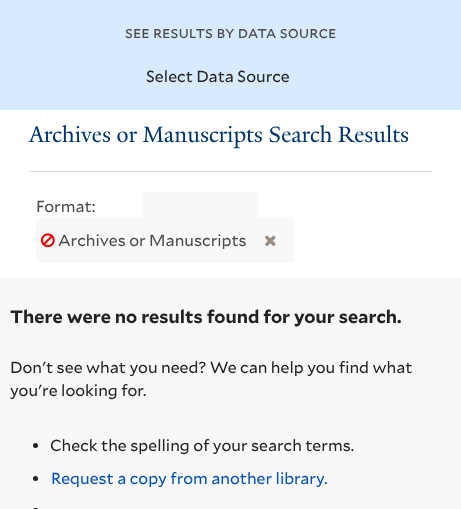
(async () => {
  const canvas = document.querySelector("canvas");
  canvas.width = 461;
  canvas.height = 509;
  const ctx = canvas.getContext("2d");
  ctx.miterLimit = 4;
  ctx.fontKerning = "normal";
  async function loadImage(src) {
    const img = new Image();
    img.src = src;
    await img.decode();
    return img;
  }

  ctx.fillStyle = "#ffffff";
  ctx.fillRect(0, 0, 461, 509);
  ctx.fillStyle = "#d8ebfe";
  ctx.fillRect(0, 0, 461, 110);
  ctx.fillStyle = "#dddddd";
  ctx.fillRect(29, 171, 403, 1);
  ctx.fillStyle = "#f8f8f8";
  ctx.beginPath();
  ctx.roundRect(36, 218, 259, 45, 5);
  ctx.fill();
  ctx.fillRect(143, 192, 115, 26);
  ctx.drawImage(await loadImage("img/1.png"), 41, 233, 14, 15);
  ctx.drawImage(await loadImage("img/2.png"), 265, 235, 11, 12);
  ctx.fillRect(0, 277, 461, 232);
  ctx.fillStyle = "#222222";
  ctx.beginPath();
  ctx.arc(35.5, 445.5, 2.5, 0, Math.PI * 2);
  ctx.fill();
  ctx.beginPath();
  ctx.arc(35.5, 478.5, 2.5, 0, Math.PI * 2);
  ctx.fill();
  ctx.beginPath();
  ctx.roundRect(33, 508, 5, 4, 2.5);
  ctx.fill();
  ctx.font = "16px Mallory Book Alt";
  ctx.fillStyle = "#4a4a4a";
  ctx.fillText("see results by data source", 125, 38);
  ctx.font = "16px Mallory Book";
  ctx.fillStyle = "#222222";
  ctx.fillText("Select Data Source", 146, 82);
  ctx.font = "24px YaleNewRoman";
  ctx.fillStyle = "#00356b";
  ctx.fillText("Archives or Manuscripts Search Results", 29, 142);
  ctx.font = "16px Mallory Book";
  ctx.fillStyle = "#4a4a4a";
  ctx.fillText("Format:", 36, 212);
  ctx.fillText("Archives or Manuscripts", 58, 246);
  ctx.font = "bold 18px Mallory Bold";
  ctx.fillStyle = "#222222";
  ctx.fillText("There were no results found for your search.", 10, 323);
  ctx.font = "16px Mallory Book";
  for (const [text, x, y] of [
    ["Don't see what you need? We can help you find what", 10, 373],
    ["you're looking for.", 10, 396],
    ["Check the spelling of your search terms.", 50, 451],
  ]) {
    ctx.fillText(text, x, y);
  }
  ctx.fillStyle = "#004eb9";
  ctx.fillText("Request a copy from another library.", 51, 484);
})();
